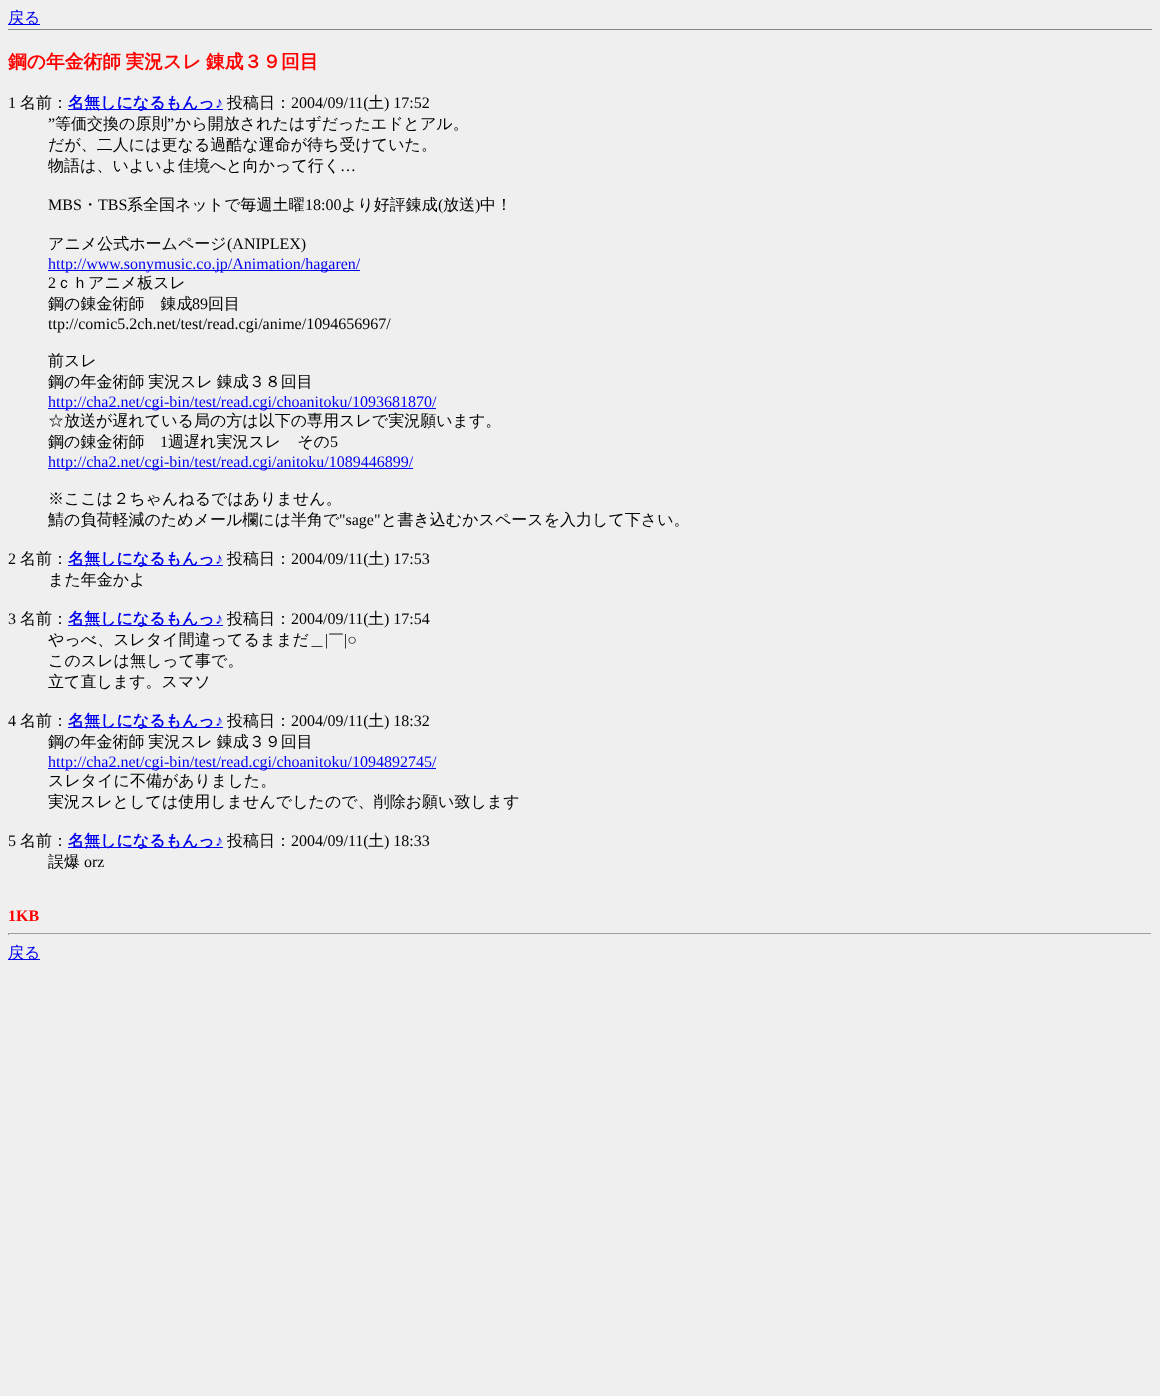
(async () => {
  const canvas = document.querySelector("canvas");
  canvas.width = 1160;
  canvas.height = 1396;
  const ctx = canvas.getContext("2d");
  ctx.miterLimit = 4;
  ctx.fontKerning = "normal";

  ctx.fillStyle = "#efefef";
  ctx.fillRect(0, 0, 1160, 1396);
  for (const [x, y, w, h, color] of [
    [8, 29, 1144, 1, "#888888"],
    [8, 24, 32, 1, "#0000ee"],
    [68, 109, 155, 1, "#0000ee"],
    [48, 270, 312, 1, "#0000ee"],
    [48, 408, 388, 1, "#0000ee"],
    [48, 468, 365, 1, "#0000ee"],
    [68, 565, 155, 1, "#0000ee"],
    [68, 625, 155, 1, "#0000ee"],
    [68, 727, 155, 1, "#0000ee"],
    [48, 768, 388, 1, "#0000ee"],
    [68, 847, 155, 1, "#0000ee"],
    [8, 933, 1144, 1, "#9f9f9f"],
    [1151, 933, 1, 2, "#eeeeee"],
    [8, 933, 1, 2, "#9f9f9f"],
    [8, 959, 32, 1, "#0000ee"],
  ]) {
    ctx.fillStyle = color;
    ctx.fillRect(x, y, w, h);
  }
  ctx.font = "500 16px WenQuanYi Zen Hei";
  ctx.fillText("戻る", 8, 23);
  ctx.wordSpacing = "-1px";
  ctx.font = "bold 18.75px WenQuanYi Zen Hei";
  ctx.fillStyle = "#ff0000";
  ctx.fillText("鋼の年金術師 実況スレ 錬成３９回目", 8, 68);
  ctx.wordSpacing = "0px";
  ctx.font = "16px Liberation Serif";
  ctx.fillStyle = "#000000";
  ctx.fillText("1", 8, 108);
  ctx.font = "500 16px WenQuanYi Zen Hei";
  ctx.fillText("名前：", 20, 108);
  ctx.font = "bold 16px WenQuanYi Zen Hei";
  ctx.fillStyle = "#0000ee";
  ctx.fillText("名無しになるもんっ", 68, 108);
  ctx.font = "bold 16px Liberation Serif";
  ctx.fillText("♪", 215, 108);
  ctx.font = "500 16px WenQuanYi Zen Hei";
  ctx.fillStyle = "#000000";
  ctx.fillText("投稿日：", 227, 108);
  ctx.font = "16px Liberation Serif";
  ctx.fillText("2004/09/11(", 291, 108);
  ctx.font = "500 16px WenQuanYi Zen Hei";
  ctx.fillText("土", 368, 108);
  ctx.font = "16px Liberation Serif";
  ctx.fillText(") 17:52", 384, 108);
  ctx.fillText("”", 48, 129);
  ctx.font = "500 16px WenQuanYi Zen Hei";
  ctx.fillText("等価交換の原則", 55, 129);
  ctx.font = "16px Liberation Serif";
  ctx.fillText("”", 167, 129);
  ctx.font = "500 16px WenQuanYi Zen Hei";
  for (const [text, x, y] of [
    ["から開放されたはずだったエドとアル。", 175, 129],
    ["だが、二人には更なる過酷な運命が待ち受けていた。", 48, 150],
    ["物語は、いよいよ佳境へと向かって行く", 48, 171],
  ]) {
    ctx.fillText(text, x, y);
  }
  ctx.font = "16px Liberation Serif";
  ctx.fillText("…", 340, 171);
  ctx.fillText("MBS", 48, 210);
  ctx.font = "500 16px WenQuanYi Zen Hei";
  ctx.fillText("・", 82, 210);
  ctx.font = "16px Liberation Serif";
  ctx.fillText("TBS", 98, 210);
  ctx.font = "500 16px WenQuanYi Zen Hei";
  ctx.fillText("系全国ネットで毎週土曜", 127, 210);
  ctx.font = "16px Liberation Serif";
  ctx.fillText("18:00", 305, 210);
  ctx.font = "500 16px WenQuanYi Zen Hei";
  ctx.fillText("より好評錬成", 341, 210);
  ctx.font = "16px Liberation Serif";
  ctx.fillText("(", 438, 210);
  ctx.font = "500 16px WenQuanYi Zen Hei";
  ctx.fillText("放送", 443, 210);
  ctx.font = "16px Liberation Serif";
  ctx.fillText(")", 475, 210);
  ctx.font = "500 16px WenQuanYi Zen Hei";
  ctx.fillText("中！", 480, 210);
  ctx.fillText("アニメ公式ホームページ", 48, 249);
  ctx.font = "16px Liberation Serif";
  ctx.fillText("(ANIPLEX)", 227, 249);
  ctx.fillStyle = "#0000ee";
  ctx.fillText("http://www.sonymusic.co.jp/Animation/hagaren/", 48, 269);
  ctx.fillStyle = "#000000";
  ctx.fillText("2", 48, 288);
  ctx.font = "500 16px WenQuanYi Zen Hei";
  ctx.fillText("ｃｈアニメ板スレ", 56, 288);
  ctx.fillText("鋼の錬金術師　錬成", 48, 309);
  ctx.font = "16px Liberation Serif";
  ctx.fillText("89", 192, 309);
  ctx.font = "500 16px WenQuanYi Zen Hei";
  ctx.fillText("回目", 208, 309);
  ctx.font = "16px Liberation Serif";
  ctx.fillText("ttp://comic5.2ch.net/test/read.cgi/anime/1094656967/", 48, 329);
  ctx.font = "500 16px WenQuanYi Zen Hei";
  ctx.fillText("前スレ", 48, 366);
  ctx.wordSpacing = "-1px";
  ctx.fillText("鋼の年金術師 実況スレ 錬成３８回目", 48, 387);
  ctx.wordSpacing = "0px";
  ctx.font = "16px Liberation Serif";
  ctx.fillStyle = "#0000ee";
  ctx.fillText("http://cha2.net/cgi-bin/test/read.cgi/choanitoku/1093681870/", 48, 407);
  ctx.font = "500 16px WenQuanYi Zen Hei";
  ctx.fillStyle = "#000000";
  ctx.fillText("☆放送が遅れている局の方は以下の専用スレで実況願います。", 48, 426);
  ctx.fillText("鋼の錬金術師", 48, 447);
  ctx.font = "16px Liberation Serif";
  ctx.fillText("1", 160, 447);
  ctx.font = "500 16px WenQuanYi Zen Hei";
  ctx.fillText("週遅れ実況スレ　その", 168, 447);
  ctx.font = "16px Liberation Serif";
  ctx.fillText("5", 330, 447);
  ctx.fillStyle = "#0000ee";
  ctx.fillText("http://cha2.net/cgi-bin/test/read.cgi/anitoku/1089446899/", 48, 467);
  ctx.font = "500 16px WenQuanYi Zen Hei";
  ctx.fillStyle = "#000000";
  ctx.fillText("※ここは２ちゃんねるではありません。", 48, 504);
  ctx.fillText("鯖の負荷軽減のためメール欄には半角で", 48, 525);
  ctx.font = "16px Liberation Serif";
  ctx.fillText("\"sage\"", 339, 525);
  ctx.font = "500 16px WenQuanYi Zen Hei";
  ctx.fillText("と書き込むかスペースを入力して下さい。", 381, 525);
  ctx.font = "16px Liberation Serif";
  ctx.fillText("2", 8, 564);
  ctx.font = "500 16px WenQuanYi Zen Hei";
  ctx.fillText("名前：", 20, 564);
  ctx.font = "bold 16px WenQuanYi Zen Hei";
  ctx.fillStyle = "#0000ee";
  ctx.fillText("名無しになるもんっ", 68, 564);
  ctx.font = "bold 16px Liberation Serif";
  ctx.fillText("♪", 215, 564);
  ctx.font = "500 16px WenQuanYi Zen Hei";
  ctx.fillStyle = "#000000";
  ctx.fillText("投稿日：", 227, 564);
  ctx.font = "16px Liberation Serif";
  ctx.fillText("2004/09/11(", 291, 564);
  ctx.font = "500 16px WenQuanYi Zen Hei";
  ctx.fillText("土", 368, 564);
  ctx.font = "16px Liberation Serif";
  ctx.fillText(") 17:53", 384, 564);
  ctx.font = "500 16px WenQuanYi Zen Hei";
  ctx.fillText("また年金かよ", 48, 585);
  ctx.font = "16px Liberation Serif";
  ctx.fillText("3", 8, 624);
  ctx.font = "500 16px WenQuanYi Zen Hei";
  ctx.fillText("名前：", 20, 624);
  ctx.font = "bold 16px WenQuanYi Zen Hei";
  ctx.fillStyle = "#0000ee";
  ctx.fillText("名無しになるもんっ", 68, 624);
  ctx.font = "bold 16px Liberation Serif";
  ctx.fillText("♪", 215, 624);
  ctx.font = "500 16px WenQuanYi Zen Hei";
  ctx.fillStyle = "#000000";
  ctx.fillText("投稿日：", 227, 624);
  ctx.font = "16px Liberation Serif";
  ctx.fillText("2004/09/11(", 291, 624);
  ctx.font = "500 16px WenQuanYi Zen Hei";
  ctx.fillText("土", 368, 624);
  ctx.font = "16px Liberation Serif";
  ctx.fillText(") 17:54", 384, 624);
  ctx.font = "500 16px WenQuanYi Zen Hei";
  ctx.fillText("やっべ、スレタイ間違ってるままだ＿", 48, 645);
  ctx.font = "16px Liberation Serif";
  ctx.fillText("|", 325, 645);
  ctx.font = "500 16px WenQuanYi Zen Hei";
  ctx.fillText("￣", 328, 645);
  ctx.font = "16px Liberation Serif";
  ctx.fillText("|○", 344, 645);
  ctx.font = "500 16px WenQuanYi Zen Hei";
  ctx.fillText("このスレは無しって事で。", 48, 666);
  ctx.fillText("立て直します。スマソ", 48, 687);
  ctx.font = "16px Liberation Serif";
  ctx.fillText("4", 8, 726);
  ctx.font = "500 16px WenQuanYi Zen Hei";
  ctx.fillText("名前：", 20, 726);
  ctx.font = "bold 16px WenQuanYi Zen Hei";
  ctx.fillStyle = "#0000ee";
  ctx.fillText("名無しになるもんっ", 68, 726);
  ctx.font = "bold 16px Liberation Serif";
  ctx.fillText("♪", 215, 726);
  ctx.font = "500 16px WenQuanYi Zen Hei";
  ctx.fillStyle = "#000000";
  ctx.fillText("投稿日：", 227, 726);
  ctx.font = "16px Liberation Serif";
  ctx.fillText("2004/09/11(", 291, 726);
  ctx.font = "500 16px WenQuanYi Zen Hei";
  ctx.fillText("土", 368, 726);
  ctx.font = "16px Liberation Serif";
  ctx.fillText(") 18:32", 384, 726);
  ctx.wordSpacing = "-1px";
  ctx.font = "500 16px WenQuanYi Zen Hei";
  ctx.fillText("鋼の年金術師 実況スレ 錬成３９回目", 48, 747);
  ctx.wordSpacing = "0px";
  ctx.font = "16px Liberation Serif";
  ctx.fillStyle = "#0000ee";
  ctx.fillText("http://cha2.net/cgi-bin/test/read.cgi/choanitoku/1094892745/", 48, 767);
  ctx.font = "500 16px WenQuanYi Zen Hei";
  ctx.fillStyle = "#000000";
  ctx.fillText("スレタイに不備がありました。", 48, 786);
  ctx.fillText("実況スレとしては使用しませんでしたので、削除お願い致します", 48, 807);
  ctx.font = "16px Liberation Serif";
  ctx.fillText("5", 8, 846);
  ctx.font = "500 16px WenQuanYi Zen Hei";
  ctx.fillText("名前：", 20, 846);
  ctx.font = "bold 16px WenQuanYi Zen Hei";
  ctx.fillStyle = "#0000ee";
  ctx.fillText("名無しになるもんっ", 68, 846);
  ctx.font = "bold 16px Liberation Serif";
  ctx.fillText("♪", 215, 846);
  ctx.font = "500 16px WenQuanYi Zen Hei";
  ctx.fillStyle = "#000000";
  ctx.fillText("投稿日：", 227, 846);
  ctx.font = "16px Liberation Serif";
  ctx.fillText("2004/09/11(", 291, 846);
  ctx.font = "500 16px WenQuanYi Zen Hei";
  ctx.fillText("土", 368, 846);
  ctx.font = "16px Liberation Serif";
  ctx.fillText(") 18:33", 384, 846);
  ctx.font = "500 16px WenQuanYi Zen Hei";
  ctx.fillText("誤爆", 48, 867);
  ctx.font = "16px Liberation Serif";
  ctx.fillText("orz", 84, 867);
  ctx.font = "bold 16px Liberation Serif";
  ctx.fillStyle = "#ff0000";
  ctx.fillText("1KB", 8, 921);
  ctx.font = "500 16px WenQuanYi Zen Hei";
  ctx.fillStyle = "#0000ee";
  ctx.fillText("戻る", 8, 958);
})();
